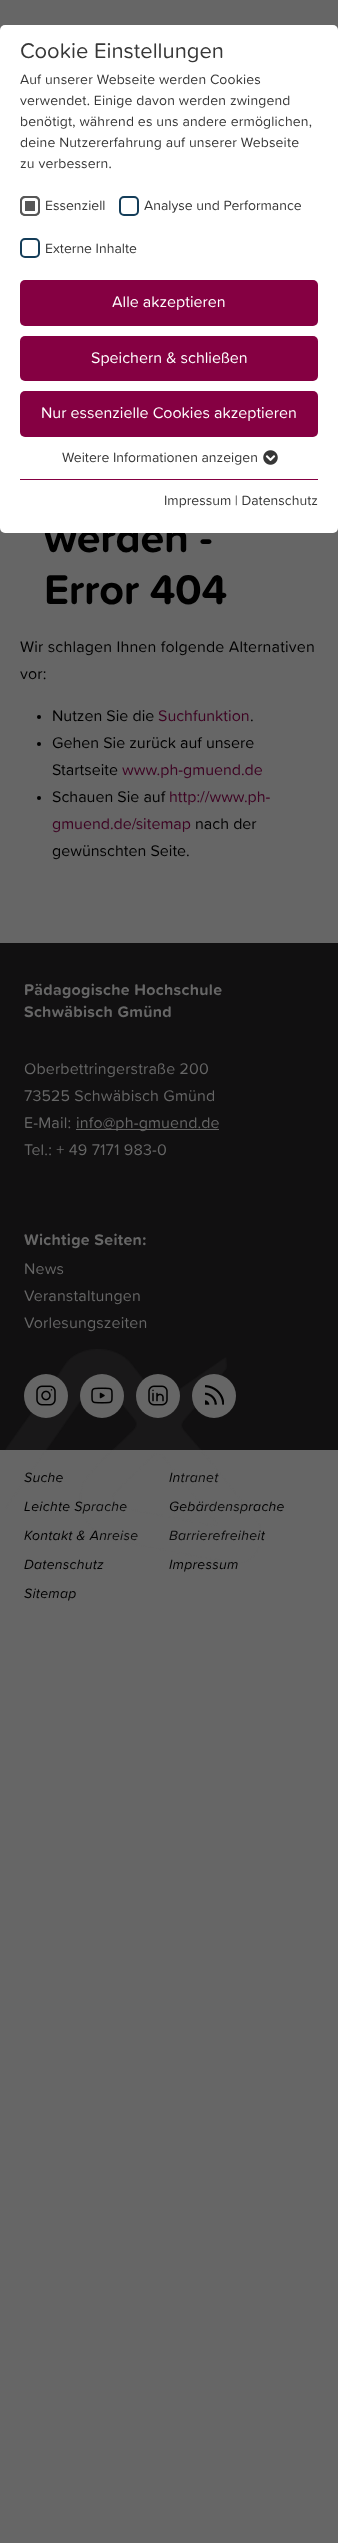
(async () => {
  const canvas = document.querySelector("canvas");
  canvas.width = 338;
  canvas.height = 2543;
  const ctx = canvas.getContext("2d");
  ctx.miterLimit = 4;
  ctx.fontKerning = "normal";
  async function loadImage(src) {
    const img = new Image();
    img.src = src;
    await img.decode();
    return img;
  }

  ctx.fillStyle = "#666666";
  ctx.fillRect(0, 0, 338, 2543);
  ctx.fillStyle = "#000000";
  ctx.beginPath();
  ctx.arc(39, 717, 2, 0, Math.PI * 2);
  ctx.fill();
  ctx.beginPath();
  ctx.arc(39, 744, 2, 0, Math.PI * 2);
  ctx.fill();
  ctx.beginPath();
  ctx.arc(39, 798, 2, 0, Math.PI * 2);
  ctx.fill();
  ctx.fillStyle = "#111011";
  ctx.fillRect(0, 943, 338, 507);
  ctx.fillStyle = "#666666";
  ctx.fillRect(76, 1129, 143, 1);
  ctx.letterSpacing = "-0.25px";
  ctx.font = "bold 43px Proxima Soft";
  ctx.fillStyle = "#000000";
  ctx.fillText("werden -", 44, 552);
  ctx.fillStyle = "#ffffff";
  ctx.beginPath();
  ctx.roundRect(0, 25, 338, 508, 5);
  ctx.fill();
  ctx.drawImage(await loadImage("img/1.png"), 263, 450, 15, 15);
  ctx.beginPath();
  ctx.roundRect(21, 239, 18, 18, 4);
  ctx.strokeStyle = "#143d59";
  ctx.lineWidth = 2;
  ctx.stroke();
  ctx.beginPath();
  ctx.roundRect(120, 197, 18, 18, 4);
  ctx.stroke();
  ctx.fillStyle = "#575757";
  ctx.beginPath();
  ctx.roundRect(20, 196, 20, 20, 5);
  ctx.fill();
  ctx.beginPath();
  ctx.roundRect(23.5, 199.5, 13, 13, 1.5);
  ctx.strokeStyle = "#ffffff";
  ctx.lineWidth = 3;
  ctx.stroke();
  ctx.beginPath();
  ctx.roundRect(21, 197, 18, 18, 4);
  ctx.strokeStyle = "#575757";
  ctx.lineWidth = 2;
  ctx.stroke();
  ctx.letterSpacing = "0px";
  ctx.font = "14px Proxima Soft";
  ctx.fillStyle = "#373737";
  ctx.fillText("Weitere Informationen anzeigen", 62, 462);
  ctx.fillStyle = "#850042";
  ctx.beginPath();
  ctx.roundRect(20, 391, 298, 46, 5);
  ctx.fill();
  ctx.font = "16px Proxima Soft";
  ctx.fillStyle = "#ffffff";
  ctx.fillText("Nur essenzielle Cookies akzeptieren", 41, 418);
  ctx.fillStyle = "#850042";
  ctx.beginPath();
  ctx.roundRect(20, 336, 298, 45, 5);
  ctx.fill();
  ctx.fillStyle = "#ffffff";
  ctx.fillText("Speichern & schließen", 91, 363);
  ctx.fillStyle = "#850042";
  ctx.beginPath();
  ctx.roundRect(20, 280, 298, 46, 5);
  ctx.fill();
  ctx.fillStyle = "#ffffff";
  ctx.fillText("Alle akzeptieren", 112, 307);
  ctx.font = "14px Proxima Soft";
  ctx.fillStyle = "#373737";
  for (const [text, x, y] of [
    ["Externe Inhalte", 45, 253],
    ["Analyse und Performance", 144, 210],
    ["Essenziell", 45, 210],
  ]) {
    ctx.fillText(text, x, y);
  }
  ctx.letterSpacing = "0.15px";
  for (const [text, x, y] of [
    ["zu verbessern.", 20, 168],
    ["deine Nutzererfahrung auf unserer Webseite", 20, 147],
    ["benötigt, während es uns andere ermöglichen,", 20, 126],
    ["verwendet. Einige davon werden zwingend", 20, 105],
    ["Auf unserer Webseite werden Cookies", 20, 84],
  ]) {
    ctx.fillText(text, x, y);
  }
  ctx.letterSpacing = "0px";
  ctx.font = "22px Proxima Soft";
  ctx.fillText("Cookie Einstellungen", 20, 58);
  ctx.font = "14px Proxima Soft";
  ctx.fillText("Impressum | Datenschutz", 164, 505);
  ctx.fillStyle = "#850042";
  ctx.fillRect(20, 479, 298, 1);
  ctx.letterSpacing = "-0.25px";
  ctx.font = "bold 43px Proxima Soft";
  ctx.fillStyle = "#000000";
  ctx.fillText("Error 404", 44, 604);
  ctx.letterSpacing = "0.15px";
  ctx.font = "16px Proxima Soft";
  ctx.fillText("Wir schlagen Ihnen folgende Alternativen", 20, 652);
  ctx.fillText("vor:", 20, 679);
  ctx.letterSpacing = "0px";
  ctx.fillText("Nutzen Sie die", 52, 721);
  ctx.fillStyle = "#3d0222";
  ctx.fillText("Suchfunktion", 158, 721);
  ctx.fillStyle = "#000000";
  for (const [text, x, y] of [
    [".", 250, 721],
    ["Gehen Sie zurück auf unsere", 52, 748],
    ["Startseite", 52, 775],
  ]) {
    ctx.fillText(text, x, y);
  }
  ctx.fillStyle = "#3d0222";
  ctx.fillText("www.ph-gmuend.de", 122, 775);
  ctx.fillStyle = "#000000";
  ctx.fillText("Schauen Sie auf", 52, 802);
  ctx.fillStyle = "#3d0222";
  ctx.fillText("http://www.ph-", 169, 802);
  ctx.fillText("gmuend.de/sitemap", 52, 829);
  ctx.fillStyle = "#000000";
  ctx.fillText("nach der", 195, 829);
  ctx.fillText("gewünschten Seite.", 52, 856);
  ctx.letterSpacing = "0.3px";
  ctx.font = "bold 16px Proxima Soft";
  ctx.fillStyle = "#666666";
  ctx.fillText("Pädagogische Hochschule", 24, 995);
  ctx.fillText("Schwäbisch Gmünd", 24, 1017);
  ctx.letterSpacing = "0.15px";
  ctx.font = "16px Proxima Soft";
  for (const [text, x, y] of [
    ["Oberbettringerstraße 200", 24, 1074],
    ["73525 Schwäbisch Gmünd", 24, 1101],
    ["E-Mail:", 24, 1128],
    ["info@ph-gmuend.de", 76, 1128],
    ["Tel.: + 49 7171 983-0", 24, 1155],
  ]) {
    ctx.fillText(text, x, y);
  }
  ctx.letterSpacing = "0.3px";
  ctx.font = "bold 16px Proxima Soft";
  ctx.fillText("Wichtige Seiten:", 24, 1245);
  ctx.letterSpacing = "0.15px";
  ctx.font = "16px Proxima Soft";
  for (const [text, x, y] of [
    ["News", 24, 1274],
    ["Veranstaltungen", 24, 1301],
    ["Vorlesungszeiten", 24, 1328],
  ]) {
    ctx.fillText(text, x, y);
  }
  ctx.letterSpacing = "0.25px";
  ctx.font = "italic 14px Proxima Soft";
  ctx.fillStyle = "#000000";
  for (const [text, x, y] of [
    ["Suche", 24, 1482],
    ["Intranet", 169, 1482],
    ["Leichte Sprache", 24, 1511],
    ["Gebärdensprache", 169, 1511],
    ["Kontakt & Anreise", 24, 1540],
    ["Barrierefreiheit", 169, 1540],
    ["Datenschutz", 24, 1569],
    ["Impressum", 169, 1569],
    ["Sitemap", 24, 1598],
  ]) {
    ctx.fillText(text, x, y);
  }
  ctx.drawImage(await loadImage("img/6.png"), 5, 1349, 256, 214);
  ctx.fillStyle = "#666666";
  ctx.beginPath();
  ctx.arc(214, 1396, 22, 0, Math.PI * 2);
  ctx.fill();
  ctx.drawImage(await loadImage("img/5.png"), 205, 1385, 19, 20);
  ctx.beginPath();
  ctx.arc(158, 1396, 22, 0, Math.PI * 2);
  ctx.fill();
  ctx.drawImage(await loadImage("img/4.png"), 148, 1385, 20, 21);
  ctx.beginPath();
  ctx.arc(102, 1396, 22, 0, Math.PI * 2);
  ctx.fill();
  ctx.drawImage(await loadImage("img/3.png"), 91, 1387, 22, 17);
  ctx.beginPath();
  ctx.arc(46, 1396, 22, 0, Math.PI * 2);
  ctx.fill();
  ctx.drawImage(await loadImage("img/2.png"), 36, 1385, 20, 21);
})();
